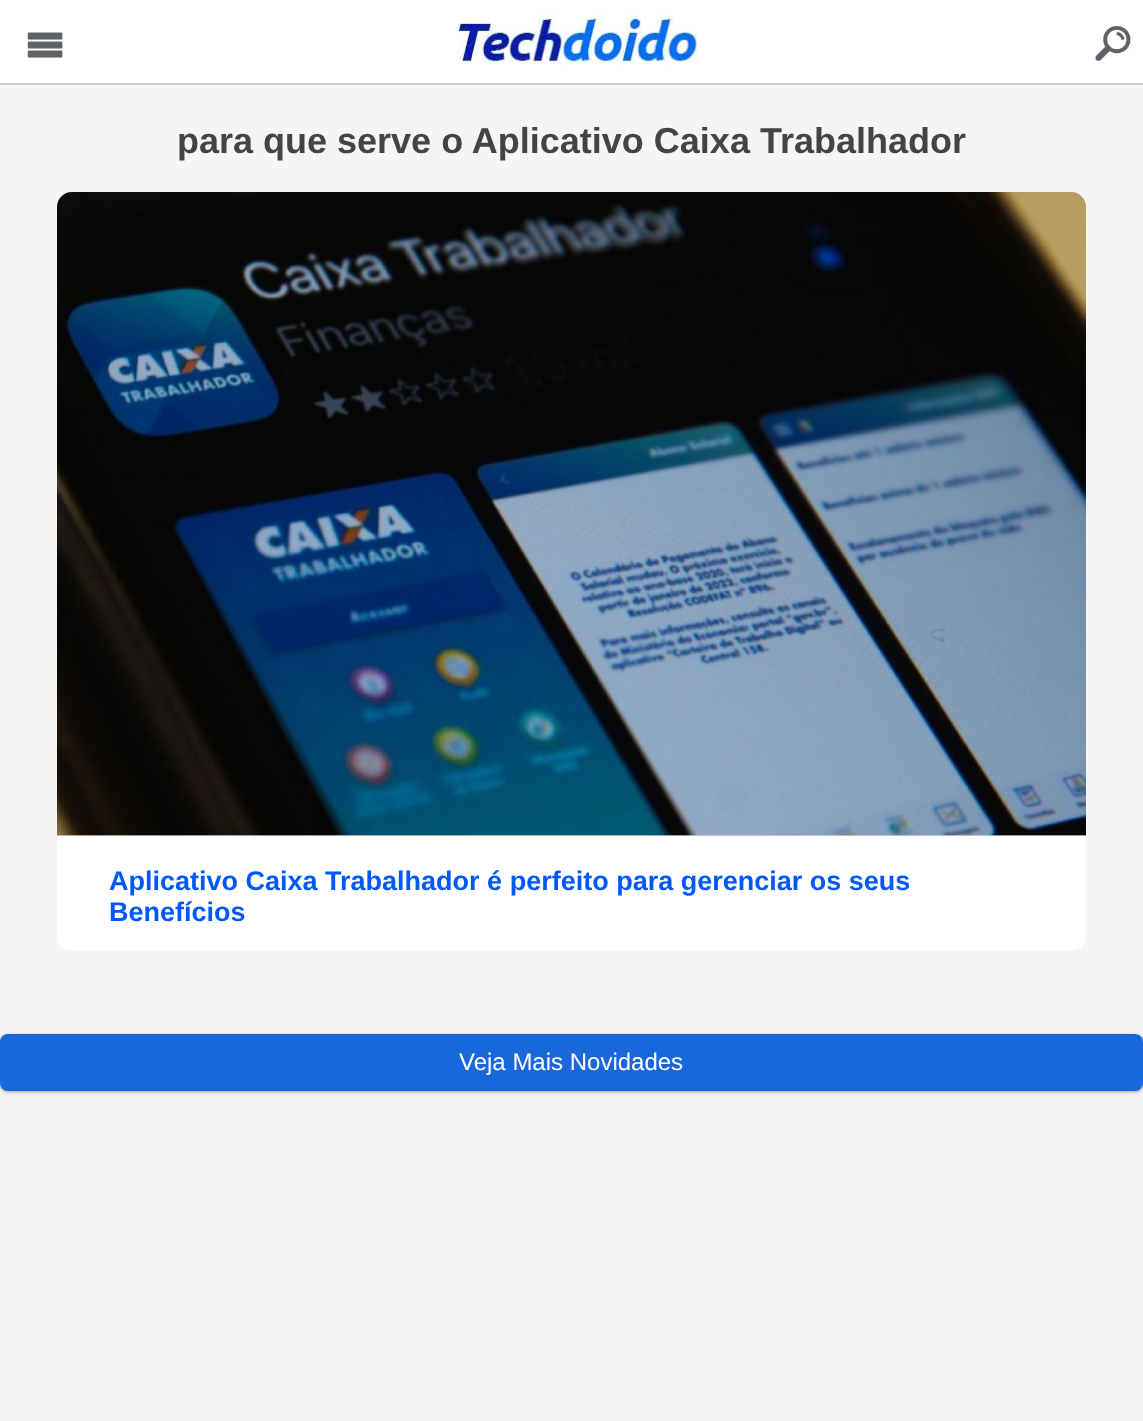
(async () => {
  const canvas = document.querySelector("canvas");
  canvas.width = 1143;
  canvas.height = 1421;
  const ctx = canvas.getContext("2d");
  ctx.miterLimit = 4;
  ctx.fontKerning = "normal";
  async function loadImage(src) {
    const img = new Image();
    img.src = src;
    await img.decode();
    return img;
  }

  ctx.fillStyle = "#f5f5f7";
  ctx.fillRect(0, 0, 1143, 1421);
  ctx.fillStyle = "#ffffff";
  ctx.fillRect(0, 0, 1143, 83);
  ctx.fillStyle = "#cccccc";
  ctx.fillRect(0, 83, 1143, 2);
  ctx.drawImage(await loadImage("img/1.png"), 456, 13, 242, 52);
  ctx.drawImage(await loadImage("img/2.png"), 27, 32, 36, 26);
  ctx.drawImage(await loadImage("img/3.png"), 1095, 26, 36, 35);
  ctx.fillStyle = "#ffffff";
  ctx.beginPath();
  ctx.roundRect(57, 192, 1029, 759, 15);
  ctx.fill();
  ctx.fillStyle = "#cccccc";
  ctx.beginPath();
  ctx.roundRect(57, 192, 1029, 644, [15, 15, 0, 0]);
  ctx.fill();
  ctx.drawImage(await loadImage("img/4.png"), 57, 192, 1029, 644);
  ctx.fillStyle = "rgba(0, 0, 0, 0.24)";
  ctx.filter = "blur(1.5px)";
  ctx.beginPath();
  ctx.roundRect(0, 1035, 1143, 57, 8);
  ctx.fill();
  ctx.filter = "none";
  ctx.fillStyle = "rgba(0, 0, 0, 0.12)";
  ctx.filter = "blur(2px)";
  ctx.beginPath();
  ctx.roundRect(0, 1035, 1143, 57, 8);
  ctx.fill();
  ctx.filter = "none";
  ctx.fillStyle = "#1868dc";
  ctx.beginPath();
  ctx.roundRect(0, 1034, 1143, 57, 8);
  ctx.fill();
  ctx.font = "bold 36px Liberation Sans";
  ctx.fillStyle = "#444444";
  ctx.fillText("para que serve o Aplicativo Caixa Trabalhador", 177, 153);
  ctx.font = "bold 27px Liberation Sans";
  ctx.fillStyle = "#0058fc";
  ctx.fillText("Aplicativo Caixa Trabalhador é perfeito para gerenciar os seus", 109, 890);
  ctx.fillText("Benefícios", 109, 921);
  ctx.font = "24px Liberation Sans";
  ctx.fillStyle = "#ffffff";
  ctx.fillText("Veja Mais Novidades", 459, 1070);
})();
